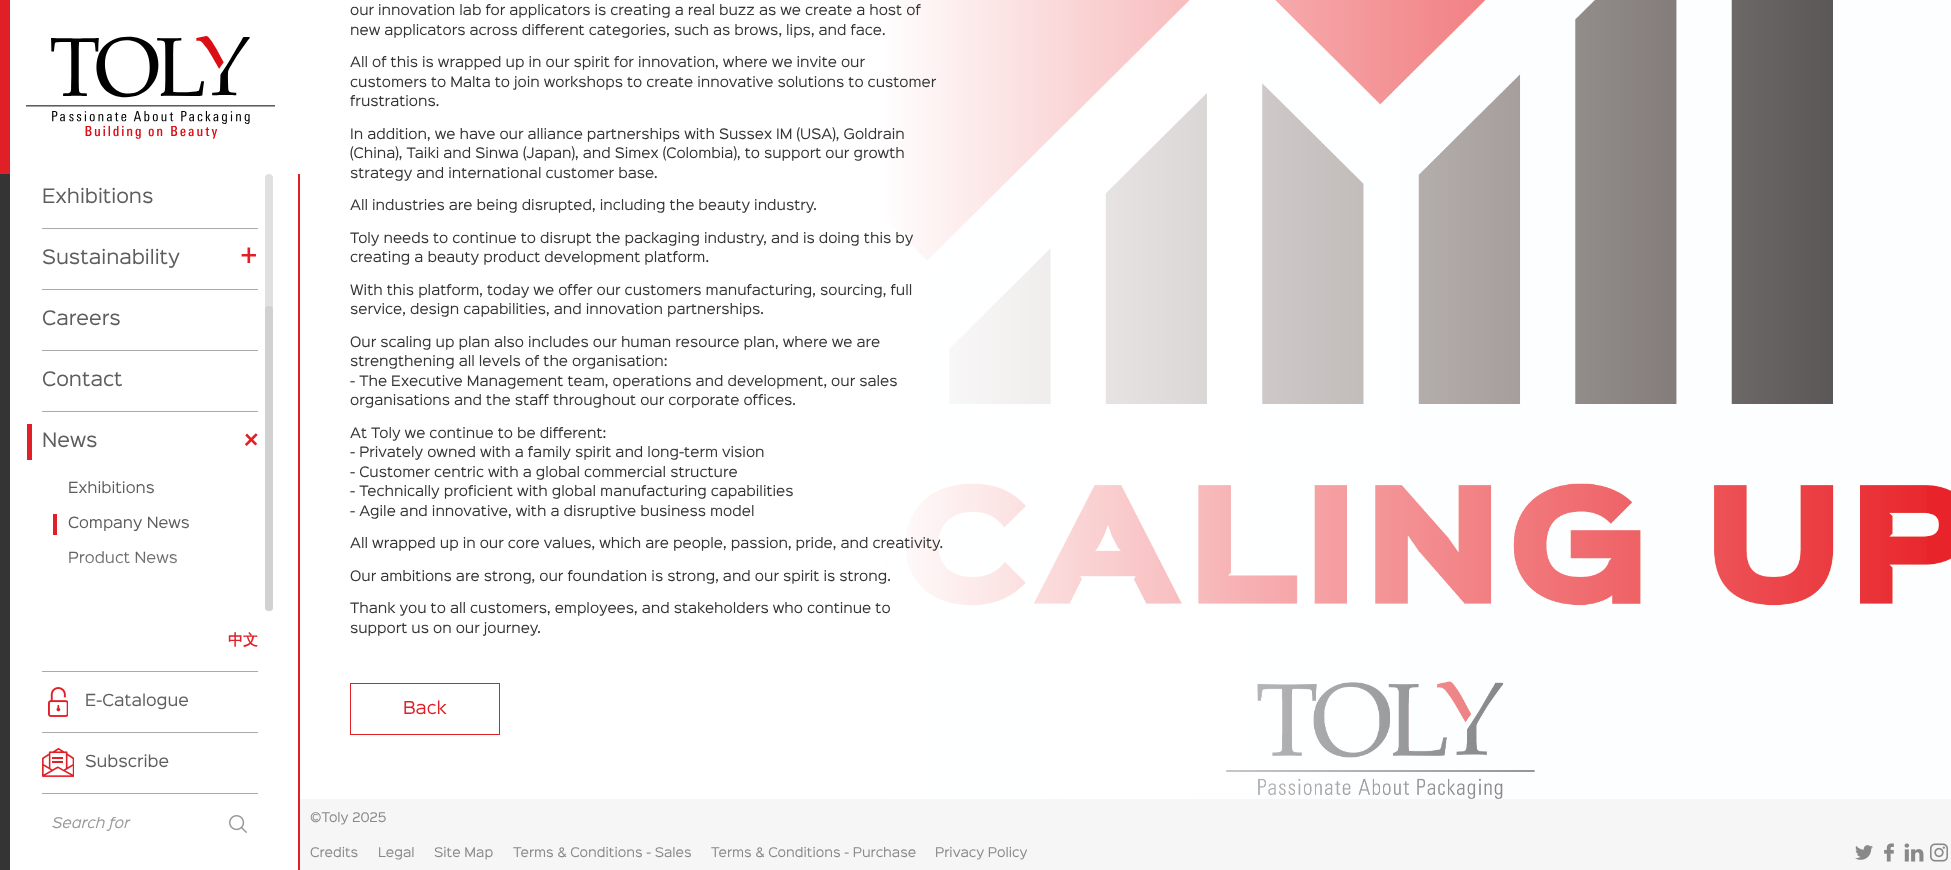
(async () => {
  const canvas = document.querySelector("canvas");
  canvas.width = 1951;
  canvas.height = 870;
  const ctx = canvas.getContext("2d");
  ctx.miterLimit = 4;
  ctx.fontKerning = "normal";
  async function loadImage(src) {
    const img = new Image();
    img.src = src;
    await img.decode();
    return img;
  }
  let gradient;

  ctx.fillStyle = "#ffffff";
  ctx.fillRect(0, 0, 1951, 870);
  ctx.fillStyle = "#e01f26";
  ctx.fillRect(0, 0, 10, 174);
  ctx.drawImage(await loadImage("img/1.png"), 26, 36, 249, 103);
  for (const [x, y, w, h, color] of [
    [0, 174, 10, 696, "#343434"],
    [42, 228, 216, 1, "#a9a9a9"],
    [42, 289, 216, 1, "#a9a9a9"],
    [42, 350, 216, 1, "#a9a9a9"],
    [42, 411, 216, 1, "#a9a9a9"],
    [27, 424, 5, 36, "#e01f26"],
    [53, 514, 4, 21, "#e01f26"],
  ]) {
    ctx.fillStyle = color;
    ctx.fillRect(x, y, w, h);
  }
  ctx.fillStyle = "#e0e0e0";
  ctx.beginPath();
  ctx.roundRect(265, 174, 8, 437, 4);
  ctx.fill();
  ctx.fillStyle = "#d1d1d1";
  ctx.beginPath();
  ctx.roundRect(265, 306, 8, 305, 4);
  ctx.fill();
  for (const [x, y, w, h, color] of [
    [298, 174, 2, 696, "#e01f26"],
    [42, 671, 216, 1, "#a9a9a9"],
    [42, 732, 216, 1, "#a9a9a9"],
  ]) {
    ctx.fillStyle = color;
    ctx.fillRect(x, y, w, h);
  }
  ctx.drawImage(await loadImage("img/2.png"), 48, 687, 20, 30);
  ctx.fillRect(42, 793, 216, 1);
  ctx.drawImage(await loadImage("img/3.png"), 42, 748, 32, 29);
  ctx.drawImage(await loadImage("img/4.png"), 229, 815, 18, 18);
  ctx.drawImage(await loadImage("img/5.png"), 884, 0, 1067, 799);
  gradient = ctx.createLinearGradient(300, 35, 1951, 35);
  gradient.addColorStop(0, "#ffffff");
  gradient.addColorStop(0.35, "#ffffff");
  gradient.addColorStop(0.6, "rgba(255, 255, 255, 0.6)");
  gradient.addColorStop(1, "rgba(255, 255, 255, 0)");
  ctx.fillStyle = gradient;
  ctx.fillRect(884, 0, 1043, 799);
  ctx.strokeStyle = "#e01f26";
  ctx.strokeRect(350.5, 683.5, 149, 51);
  ctx.fillStyle = "#f6f6f6";
  ctx.fillRect(300, 799, 1651, 71);
  ctx.drawImage(await loadImage("img/6.png"), 1855, 845, 18, 15);
  ctx.drawImage(await loadImage("img/7.png"), 1884, 843, 10, 19);
  ctx.drawImage(await loadImage("img/8.png"), 1904, 843, 20, 19);
  ctx.drawImage(await loadImage("img/9.png"), 1930, 843, 18, 19);
  ctx.font = "18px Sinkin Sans";
  ctx.fillStyle = "#5d5d5d";
  ctx.fillText("Exhibitions", 42, 203);
  ctx.fillText("Sustainability", 42, 264);
  ctx.font = "29px Sinkin Sans";
  ctx.fillStyle = "#e01f26";
  ctx.fillText("+", 239, 267);
  ctx.font = "18px Sinkin Sans";
  ctx.fillStyle = "#5d5d5d";
  for (const [text, x, y] of [
    ["Careers", 42, 325],
    ["Contact", 42, 386],
    ["News", 42, 447],
  ]) {
    ctx.fillText(text, x, y);
  }
  ctx.font = "29px Sinkin Sans";
  ctx.fillStyle = "#e01f26";
  ctx.save();
  ctx.translate(236, 441);
  ctx.rotate(45 * Math.PI / 180);
  ctx.fillText("+", 0, 0);
  ctx.restore();
  ctx.font = "14px Sinkin Sans";
  ctx.fillStyle = "#5d5d5d";
  for (const [text, x, y] of [
    ["Exhibitions", 68, 493],
    ["Company News", 68, 528],
    ["Product News", 68, 563],
  ]) {
    ctx.fillText(text, x, y);
  }
  gradient = ctx.createLinearGradient(150, 551, 150, 611);
  gradient.addColorStop(0, "rgba(255, 255, 255, 0)");
  gradient.addColorStop(1, "#ffffff");
  ctx.fillStyle = gradient;
  ctx.fillRect(69, 552, 108, 12);
  ctx.font = "bold 15px WenQuanYi Zen Hei";
  ctx.fillStyle = "#e01f26";
  ctx.fillText("中文", 228, 645);
  ctx.font = "15px Sinkin Sans";
  ctx.fillStyle = "#5d5d5d";
  ctx.fillText("E-Catalogue", 85, 706);
  ctx.fillText("Subscribe", 85, 767);
  ctx.save();
  ctx.beginPath();
  ctx.rect(52, 817, 162, 14);
  ctx.clip();
  ctx.font = "italic 13.5px Sinkin Sans";
  ctx.fillStyle = "#999999";
  ctx.fillText("Search for", 52, 828);
  ctx.restore();
  ctx.font = "13px Sinkin Sans";
  ctx.fillStyle = "#343434";
  for (const [text, x, y] of [
    ["our innovation lab for applicators is creating a real buzz as we create a host of", 350, 15],
    ["new applicators across different categories, such as brows, lips, and face.", 350, 35],
    ["All of this is wrapped up in our spirit for innovation, where we invite our", 350, 67],
    ["customers to Malta to join workshops to create innovative solutions to customer", 350, 87],
    ["frustrations.", 350, 106],
    ["In addition, we have our alliance partnerships with Sussex IM (USA), Goldrain", 350, 139],
    ["(China), Taiki and Sinwa (Japan), and Simex (Colombia), to support our growth", 350, 158],
    ["strategy and international customer base.", 350, 178],
    ["All industries are being disrupted, including the beauty industry.", 350, 210],
    ["Toly needs to continue to disrupt the packaging industry, and is doing this by", 350, 243],
    ["creating a beauty product development platform.", 350, 262],
    ["With this platform, today we offer our customers manufacturing, sourcing, full", 350, 295],
    ["service, design capabilities, and innovation partnerships.", 350, 314],
    ["Our scaling up plan also includes our human resource plan, where we are", 350, 347],
    ["strengthening all levels of the organisation:", 350, 366],
    ["- The Executive Management team, operations and development, our sales", 350, 386],
    ["organisations and the staff throughout our corporate offices.", 350, 405],
    ["At Toly we continue to be different:", 350, 438],
    ["- Privately owned with a family spirit and long-term vision", 350, 457],
    ["- Customer centric with a global commercial structure", 350, 477],
    ["- Technically proficient with global manufacturing capabilities", 350, 496],
    ["- Agile and innovative, with a disruptive business model", 350, 516],
    ["All wrapped up in our core values, which are people, passion, pride, and creativity.", 350, 548],
    ["Our ambitions are strong, our foundation is strong, and our spirit is strong.", 350, 581],
    ["Thank you to all customers, employees, and stakeholders who continue to", 350, 613],
    ["support us on our journey.", 350, 633],
  ]) {
    ctx.fillText(text, x, y);
  }
  ctx.font = "16px Sinkin Sans";
  ctx.fillStyle = "#e01f26";
  ctx.fillText("Back", 403, 714);
  ctx.font = "12px Sinkin Sans";
  ctx.fillStyle = "#898989";
  for (const [text, x, y] of [
    ["©Toly 2025", 310, 822],
    ["Credits", 310, 857],
    ["Legal", 378, 857],
    ["Site Map", 434, 857],
    ["Terms & Conditions - Sales", 513, 857],
    ["Terms & Conditions - Purchase", 711, 857],
    ["Privacy Policy", 935, 857],
  ]) {
    ctx.fillText(text, x, y);
  }
})();
